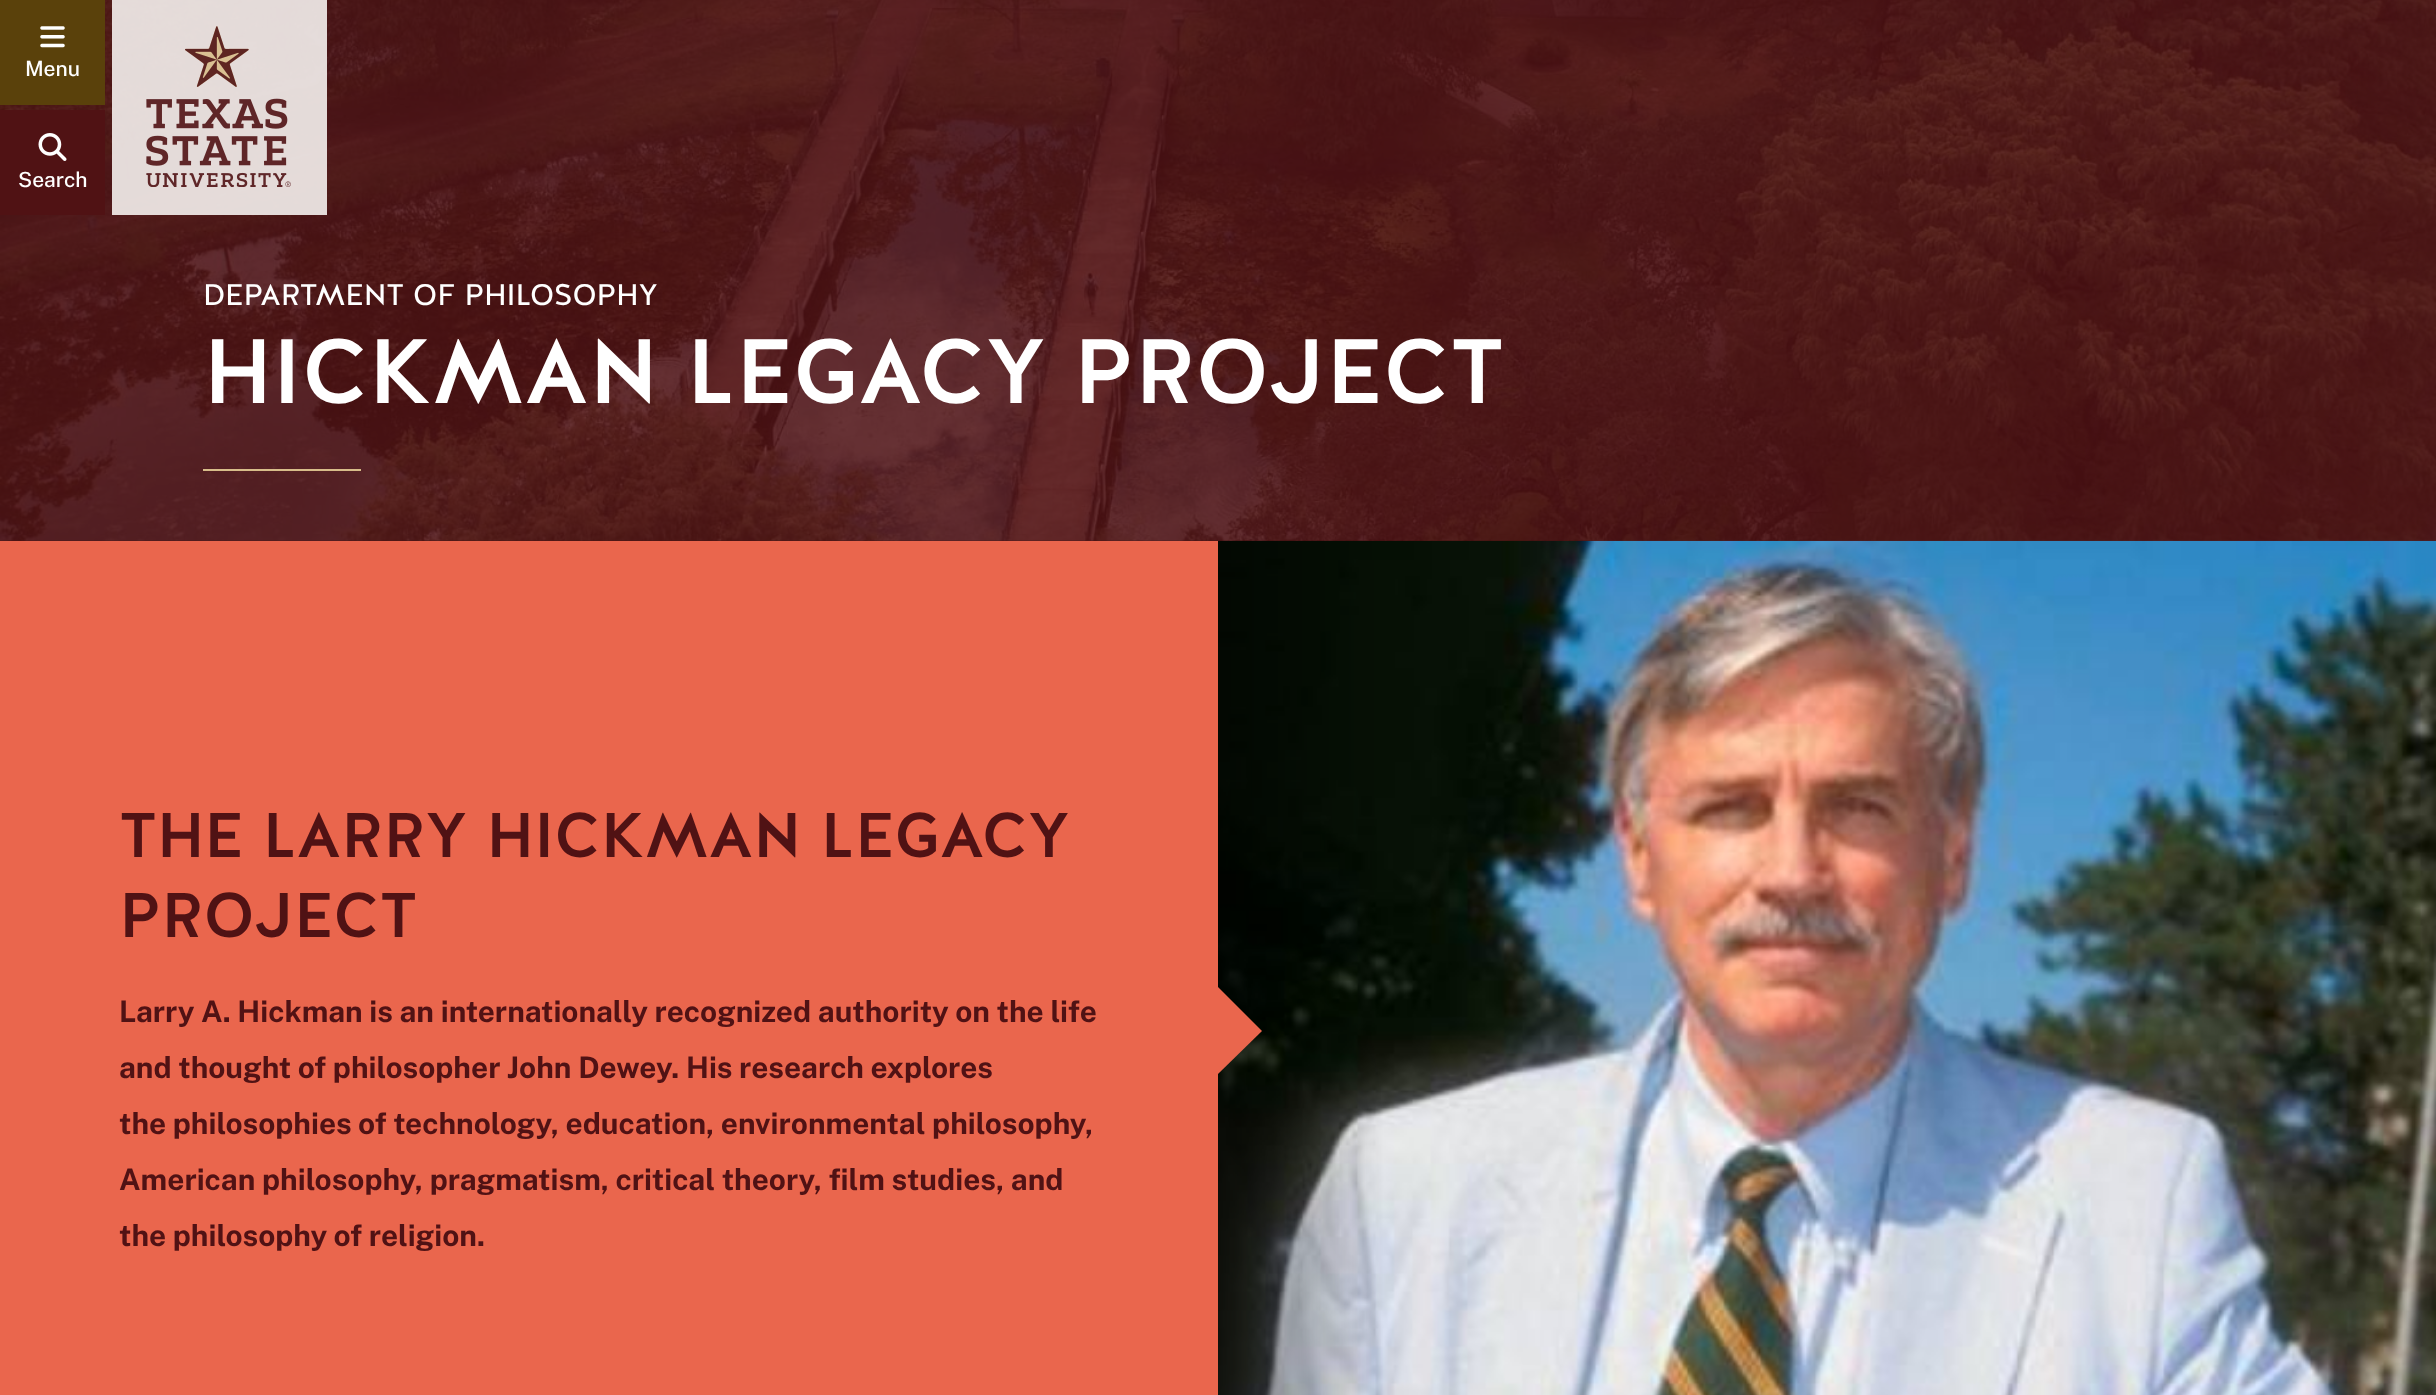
(async () => {
  const canvas = document.querySelector("canvas");
  canvas.width = 2436;
  canvas.height = 1395;
  const ctx = canvas.getContext("2d");
  ctx.miterLimit = 4;
  ctx.fontKerning = "normal";
  async function loadImage(src) {
    const img = new Image();
    img.src = src;
    await img.decode();
    return img;
  }
  let path;

  ctx.fillStyle = "#501214";
  ctx.fillRect(0, 0, 2436, 1395);
  ctx.drawImage(await loadImage("img/4.png"), 0, 0, 2436, 541);
  ctx.fillStyle = "#5a410b";
  ctx.fillRect(0, 0, 105, 105);
  ctx.drawImage(await loadImage("img/1.png"), 40, 26, 25, 22);
  ctx.fillStyle = "#501214";
  ctx.fillRect(0, 110, 105, 105);
  ctx.drawImage(await loadImage("img/2.png"), 38, 133, 29, 28);
  ctx.fillStyle = "rgba(245, 241, 238, 0.9)";
  ctx.fillRect(112, 0, 215, 215);
  ctx.drawImage(await loadImage("img/3.png"), 146, 26, 145, 161);
  ctx.fillStyle = "#d7bd8a";
  ctx.fillRect(203, 469, 158, 2);
  ctx.fillStyle = "#ea664d";
  ctx.fillRect(0, 541, 1218, 854);
  ctx.drawImage(await loadImage("img/5.png"), 1218, 540, 1218, 855);
  path = new Path2D("M1218 1074V987L1262 1031Z");
  ctx.fill(path);
  ctx.font = "500 21px Public Sans";
  ctx.fillStyle = "#ffffff";
  ctx.fillText("Menu", 25, 76);
  ctx.fillText("Search", 18, 187);
  ctx.font = "29.75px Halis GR";
  ctx.fillText("DEPARTMENT OF PHILOSOPHY", 203, 305);
  ctx.font = "500 91px Halis GR";
  ctx.fillText("HICKMAN LEGACY PROJECT", 203, 403);
  ctx.font = "500 63px Halis GR";
  ctx.fillStyle = "#501214";
  ctx.fillText("THE LARRY HICKMAN LEGACY", 119, 857);
  ctx.fillText("PROJECT", 119, 937);
  ctx.font = "bold 29.75px Public Sans";
  for (const [text, x, y] of [
    ["Larry A. Hickman is an internationally recognized authority on the life", 119, 1022],
    ["and thought of philosopher John Dewey. His research explores", 119, 1078],
    ["the philosophies of technology, education, environmental philosophy,", 119, 1134],
    ["American philosophy, pragmatism, critical theory, film studies, and", 119, 1190],
    ["the philosophy of religion.", 119, 1246],
  ]) {
    ctx.fillText(text, x, y);
  }
})();
